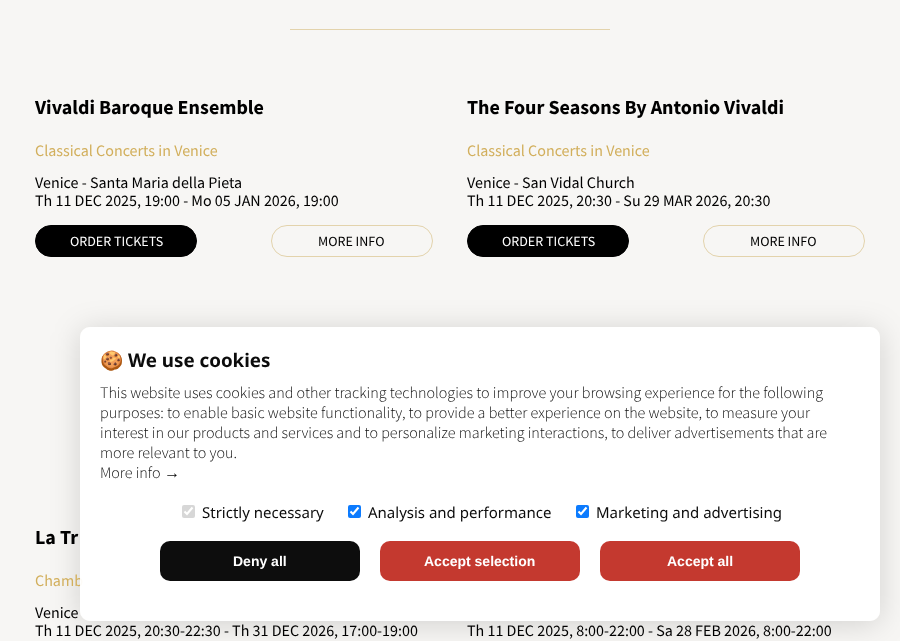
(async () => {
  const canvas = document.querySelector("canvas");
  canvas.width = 900;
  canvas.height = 641;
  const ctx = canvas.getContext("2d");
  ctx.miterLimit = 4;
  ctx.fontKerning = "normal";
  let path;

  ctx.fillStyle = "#f7f6f4";
  ctx.fillRect(0, 0, 900, 641);
  ctx.fillStyle = "#e3d3ac";
  ctx.fillRect(290, 29, 320, 1);
  ctx.fillStyle = "#000000";
  ctx.beginPath();
  ctx.roundRect(35.5, 225.5, 161, 31, 15.5);
  ctx.fill();
  ctx.strokeStyle = "#000000";
  ctx.stroke();
  ctx.beginPath();
  ctx.roundRect(271.5, 225.5, 161, 31, 15.5);
  ctx.strokeStyle = "#e3d3ac";
  ctx.stroke();
  ctx.beginPath();
  ctx.roundRect(467.5, 225.5, 161, 31, 15.5);
  ctx.fill();
  ctx.strokeStyle = "#000000";
  ctx.stroke();
  ctx.beginPath();
  ctx.roundRect(703.5, 225.5, 161, 31, 15.5);
  ctx.strokeStyle = "#e3d3ac";
  ctx.stroke();
  ctx.save();
  path = new Path2D("M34 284H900V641H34ZM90 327H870C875.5 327 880 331.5 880 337V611C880 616.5 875.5 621 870 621H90C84.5 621 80 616.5 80 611V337C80 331.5 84.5 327 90 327Z");
  ctx.clip(path, "evenodd");
  ctx.fillStyle = "rgba(0, 0, 0, 0.15)";
  ctx.filter = "blur(15px)";
  ctx.beginPath();
  ctx.roundRect(80, 330, 800, 294, 10);
  ctx.fill();
  ctx.filter = "none";
  ctx.restore();
  ctx.font = "bold 20px Source Sans Pro";
  ctx.fillText("Vivaldi Baroque Ensemble", 35, 114);
  ctx.font = "16px Source Sans Pro";
  ctx.fillStyle = "#d2af5c";
  ctx.fillText("Classical Concerts in Venice", 35, 156);
  ctx.fillStyle = "#000000";
  ctx.fillText("Venice - Santa Maria della Pieta", 35, 188);
  ctx.fillText("Th 11 DEC 2025, 19:00 - Mo 05 JAN 2026, 19:00", 35, 206);
  ctx.font = "14px Source Sans Pro";
  ctx.fillStyle = "#ffffff";
  ctx.fillText("ORDER TICKETS", 70, 246);
  ctx.fillStyle = "#000000";
  ctx.fillText("MORE INFO", 318, 246);
  ctx.font = "bold 20px Source Sans Pro";
  ctx.fillText("The Four Seasons By Antonio Vivaldi", 467, 114);
  ctx.font = "16px Source Sans Pro";
  ctx.fillStyle = "#d2af5c";
  ctx.fillText("Classical Concerts in Venice", 467, 156);
  ctx.fillStyle = "#000000";
  ctx.fillText("Venice - San Vidal Church", 467, 188);
  ctx.fillText("Th 11 DEC 2025, 20:30 - Su 29 MAR 2026, 20:30", 467, 206);
  ctx.font = "14px Source Sans Pro";
  ctx.fillStyle = "#ffffff";
  ctx.fillText("ORDER TICKETS", 502, 246);
  ctx.fillStyle = "#000000";
  ctx.fillText("MORE INFO", 750, 246);
  ctx.font = "bold 20px Source Sans Pro";
  ctx.fillText("La Tr", 35, 544);
  ctx.font = "16px Source Sans Pro";
  ctx.fillStyle = "#d2af5c";
  ctx.fillText("Chamb", 35, 586);
  ctx.fillStyle = "#000000";
  for (const [text, x, y] of [
    ["Venice", 35, 618],
    ["Th 11 DEC 2025, 20:30-22:30 - Th 31 DEC 2026, 17:00-19:00", 35, 636],
    ["Th 11 DEC 2025, 8:00-22:00 - Sa 28 FEB 2026, 8:00-22:00", 467, 636],
  ]) {
    ctx.fillText(text, x, y);
  }
  ctx.fillStyle = "rgba(255, 255, 255, 0.95)";
  ctx.beginPath();
  ctx.roundRect(80, 327, 800, 294, 10);
  ctx.fill();
  ctx.font = "bold 18.75px Noto Color Emoji";
  ctx.fillStyle = "#0c0c0c";
  ctx.fillText("🍪", 100, 367);
  ctx.font = "bold 18.75px Noto Sans";
  ctx.fillText("We use cookies", 128, 367);
  ctx.font = "300 16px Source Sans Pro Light";
  for (const [text, x, y] of [
    ["This website uses cookies and other tracking technologies to improve your browsing experience for the following", 100, 398],
    ["purposes: to enable basic website functionality, to provide a better experience on the website, to measure your", 100, 418],
    ["interest in our products and services and to personalize marketing interactions, to deliver advertisements that are", 100, 438],
    ["more relevant to you.", 100, 458],
    ["More info", 100, 478],
  ]) {
    ctx.fillText(text, x, y);
  }
  ctx.font = "16px Liberation Sans";
  ctx.fillText("→", 164, 478);
  ctx.fillStyle = "#d7d7d7";
  ctx.beginPath();
  ctx.roundRect(182, 505, 13, 13, 2);
  ctx.fill();
  path = new Path2D("M184.5 511.5L187 514L192.5 507.5");
  ctx.strokeStyle = "#fffffe";
  ctx.lineWidth = 2.1;
  ctx.stroke(path);
  ctx.font = "15px Noto Sans";
  ctx.fillStyle = "#0c0c0c";
  ctx.fillText("Strictly necessary", 202, 518);
  ctx.fillStyle = "#0c7bfe";
  ctx.beginPath();
  ctx.roundRect(348, 505, 13, 13, 2);
  ctx.fill();
  path = new Path2D("M350.5 511.5L353 514L358.5 507.5");
  ctx.stroke(path);
  ctx.fillStyle = "#0c0c0c";
  ctx.fillText("Analysis and performance", 368, 518);
  ctx.fillStyle = "#0c7bfe";
  ctx.beginPath();
  ctx.roundRect(576, 505, 13, 13, 2);
  ctx.fill();
  path = new Path2D("M578.5 511.5L581 514L586.5 507.5");
  ctx.stroke(path);
  ctx.fillStyle = "#0c0c0c";
  ctx.fillText("Marketing and advertising", 596, 518);
  ctx.fillStyle = "rgba(0, 0, 0, 0.95)";
  ctx.beginPath();
  ctx.roundRect(160, 541, 200, 40, 10);
  ctx.fill();
  ctx.font = "bold 14px Liberation Sans";
  ctx.fillStyle = "#ffffff";
  ctx.fillText("Deny all", 233, 566);
  ctx.fillStyle = "rgba(193, 46, 36, 0.95)";
  ctx.beginPath();
  ctx.roundRect(380, 541, 200, 40, 10);
  ctx.fill();
  ctx.fillStyle = "#ffffff";
  ctx.fillText("Accept selection", 424, 566);
  ctx.fillStyle = "rgba(193, 46, 36, 0.95)";
  ctx.beginPath();
  ctx.roundRect(600, 541, 200, 40, 10);
  ctx.fill();
  ctx.fillStyle = "#ffffff";
  ctx.fillText("Accept all", 667, 566);
})();
